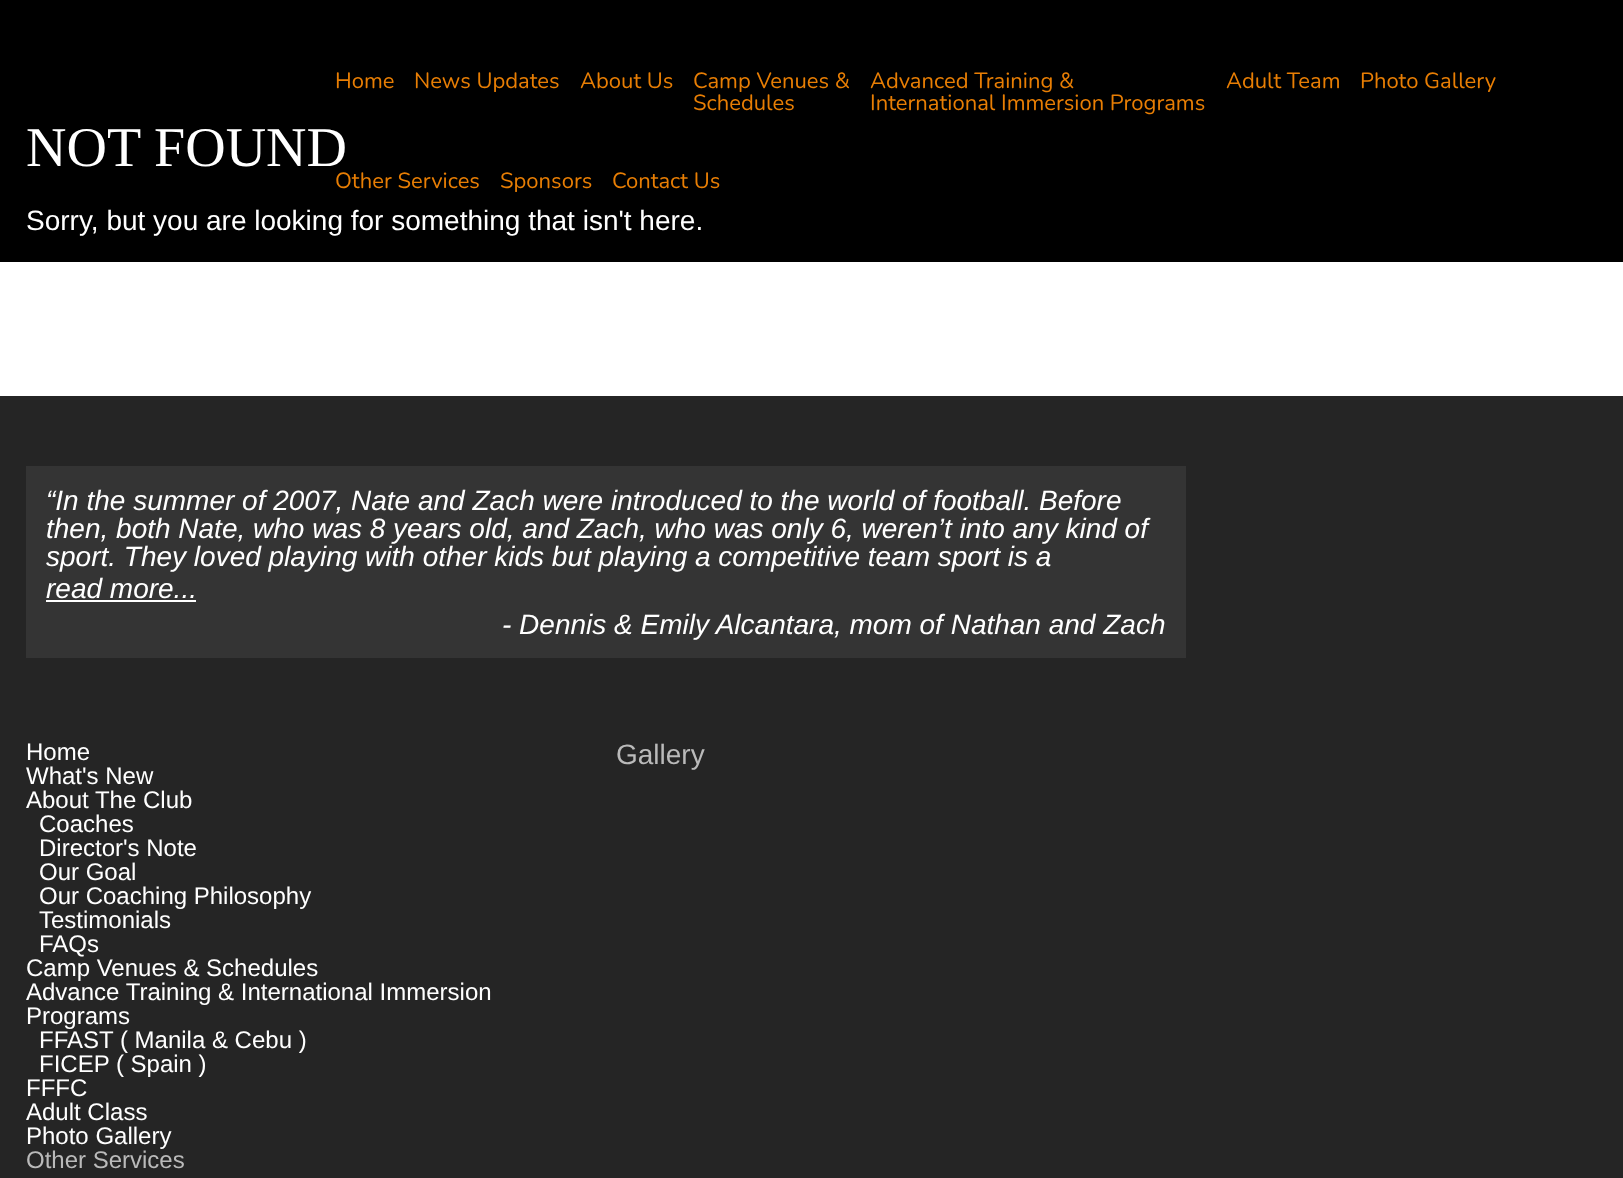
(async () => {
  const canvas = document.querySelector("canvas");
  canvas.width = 1623;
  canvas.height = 1178;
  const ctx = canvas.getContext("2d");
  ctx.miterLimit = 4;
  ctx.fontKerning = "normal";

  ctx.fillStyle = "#000000";
  ctx.fillRect(0, 0, 1623, 1178);
  for (const [x, y, w, h, color] of [
    [0, 396, 1623, 782, "#252525"],
    [0, 262, 1623, 134, "#ffffff"],
    [26, 466, 1160, 192, "#343434"],
    [46, 600, 150, 2, "#ffffff"],
  ]) {
    ctx.fillStyle = color;
    ctx.fillRect(x, y, w, h);
  }
  ctx.font = "22px Nunito";
  ctx.fillStyle = "#e87e04";
  for (const [text, x, y] of [
    ["Home", 335, 88],
    ["News Updates", 414, 88],
    ["About Us", 580, 88],
    ["Camp Venues &", 693, 88],
    ["Schedules", 693, 110],
    ["Advanced Training &", 870, 88],
    ["International Immersion Programs", 870, 110],
    ["Adult Team", 1226, 88],
    ["Photo Gallery", 1360, 88],
    ["Other Services", 335, 188],
    ["Sponsors", 500, 188],
    ["Contact Us", 612, 188],
  ]) {
    ctx.fillText(text, x, y);
  }
  ctx.font = "56px Liberation Serif";
  ctx.fillStyle = "#ffffff";
  ctx.fillText("NOT FOUND", 26, 166);
  ctx.font = "28px Liberation Sans";
  ctx.fillText("Sorry, but you are looking for something that isn't here.", 26, 230);
  ctx.font = "italic 28px Liberation Sans";
  for (const [text, x, y] of [
    ["“In the summer of 2007, Nate and Zach were introduced to the world of football. Before", 46, 510],
    ["then, both Nate, who was 8 years old, and Zach, who was only 6, weren’t into any kind of", 46, 538],
    ["sport. They loved playing with other kids but playing a competitive team sport is a", 46, 566],
    ["read more...", 46, 598],
    ["- Dennis & Emily Alcantara, mom of Nathan and Zach", 502, 634],
  ]) {
    ctx.fillText(text, x, y);
  }
  ctx.font = "24px Liberation Sans";
  for (const [text, x, y] of [
    ["Home", 26, 760],
    ["What's New", 26, 784],
    ["About The Club", 26, 808],
    ["Coaches", 39, 832],
    ["Director's Note", 39, 856],
    ["Our Goal", 39, 880],
    ["Our Coaching Philosophy", 39, 904],
    ["Testimonials", 39, 928],
    ["FAQs", 39, 952],
    ["Camp Venues & Schedules", 26, 976],
    ["Advance Training & International Immersion", 26, 1000],
    ["Programs", 26, 1024],
    ["FFAST ( Manila & Cebu )", 39, 1048],
    ["FICEP ( Spain )", 39, 1072],
    ["FFFC", 26, 1096],
    ["Adult Class", 26, 1120],
    ["Photo Gallery", 26, 1144],
  ]) {
    ctx.fillText(text, x, y);
  }
  ctx.fillStyle = "#bababa";
  ctx.fillText("Other Services", 26, 1168);
  ctx.font = "28px Liberation Sans";
  ctx.fillText("Gallery", 616, 764);
})();
